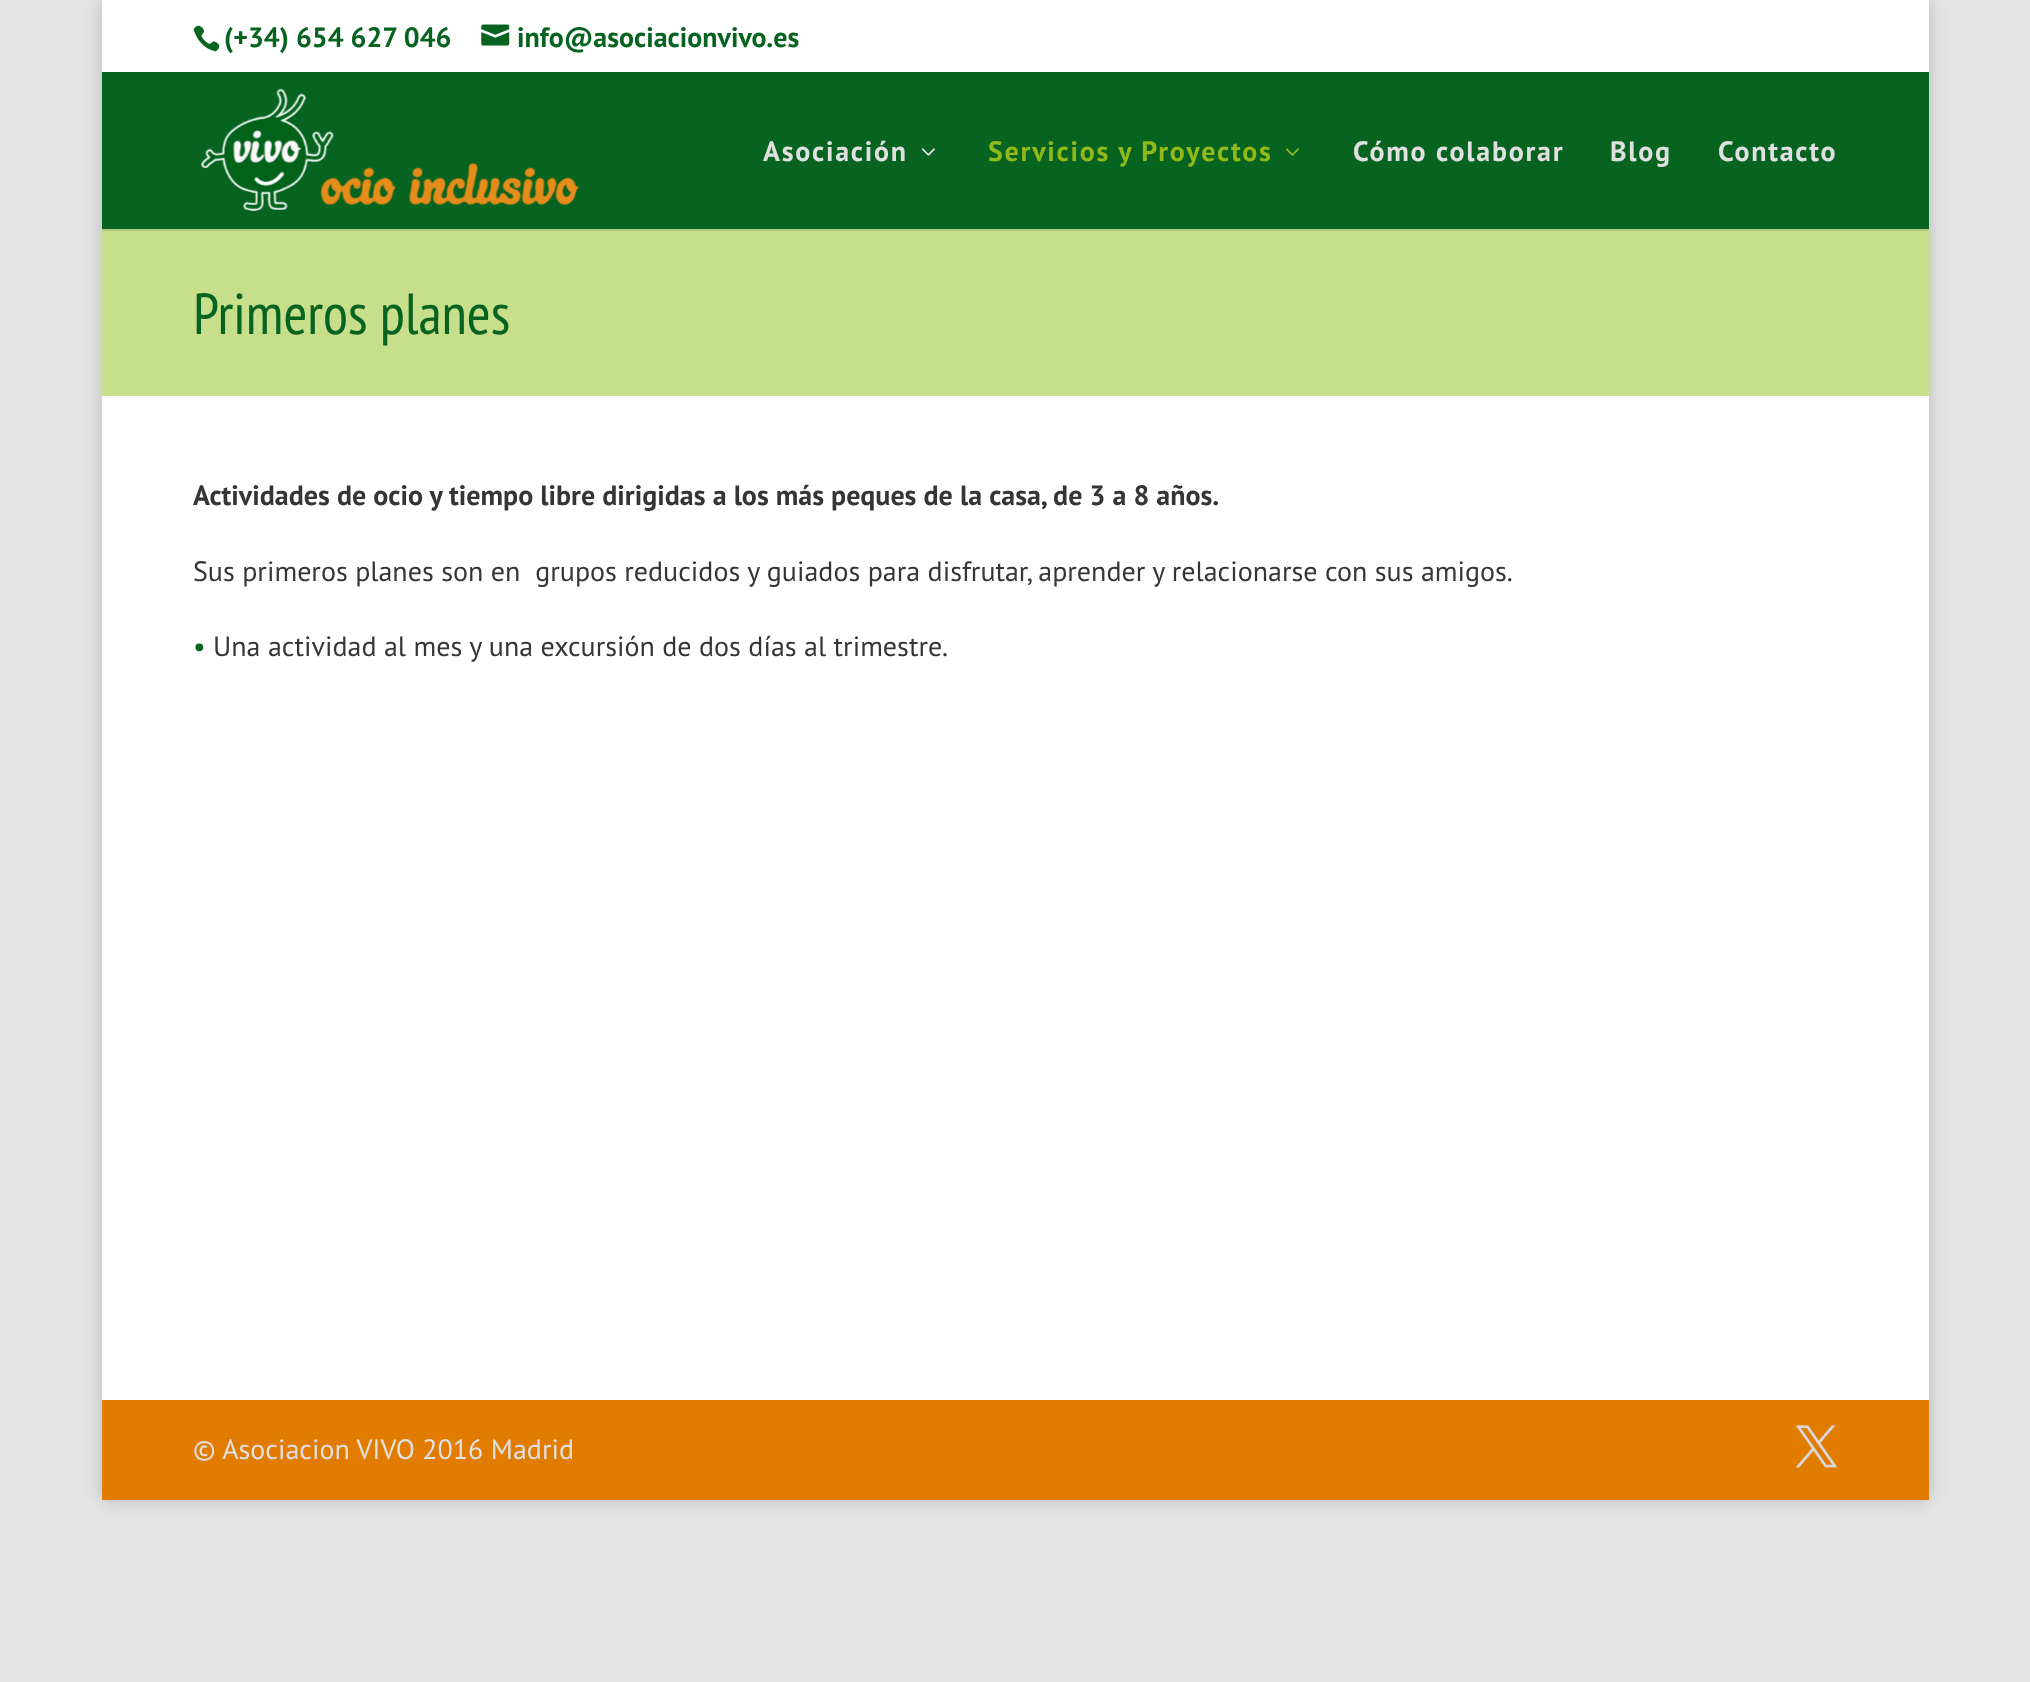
(async () => {
  const canvas = document.querySelector("canvas");
  canvas.width = 2030;
  canvas.height = 1682;
  const ctx = canvas.getContext("2d");
  ctx.miterLimit = 4;
  ctx.fontKerning = "normal";
  async function loadImage(src) {
    const img = new Image();
    img.src = src;
    await img.decode();
    return img;
  }
  let path;

  ctx.fillStyle = "#e5e5e5";
  ctx.fillRect(0, 0, 2030, 1682);
  ctx.fillStyle = "rgba(0, 0, 0, 0.2)";
  ctx.filter = "blur(9px)";
  ctx.beginPath();
  ctx.rect(102, 0, 1827, 1500);
  ctx.fill();
  ctx.filter = "none";
  ctx.fillStyle = "#ffffff";
  ctx.fillRect(102, 0, 1827, 72);
  ctx.drawImage(await loadImage("img/1.png"), 193, 25, 27, 27);
  ctx.drawImage(await loadImage("img/2.png"), 481, 24, 29, 22);
  ctx.fillStyle = "#c7df8a";
  ctx.fillRect(102, 229, 1827, 167);
  ctx.fillStyle = "rgba(0, 0, 0, 0.1)";
  path = new Path2D("M102 229V231H1929V74H1928V229Z");
  ctx.fill(path);
  ctx.fillStyle = "#076320";
  ctx.fillRect(102, 72, 1827, 157);
  ctx.drawImage(await loadImage("img/3.png"), 200, 88, 379, 123);
  ctx.drawImage(await loadImage("img/4.png"), 921, 148, 14, 8);
  ctx.drawImage(await loadImage("img/5.png"), 1285, 148, 14, 8);
  ctx.fillStyle = "#ffffff";
  ctx.fillRect(102, 396, 1827, 1004);
  ctx.fillStyle = "#e27c00";
  ctx.fillRect(102, 1400, 1827, 100);
  ctx.drawImage(await loadImage("img/6.png"), 1795, 1425, 43, 43);
  ctx.font = "bold 28px PT Sans";
  ctx.fillStyle = "#076320";
  ctx.fillText("(+34) 654 627 046", 224, 47);
  ctx.fillText("info@asociacionvivo.es", 517, 47);
  ctx.letterSpacing = "1.75px";
  ctx.fillStyle = "#e0e0e0";
  ctx.fillText("Asociación", 763, 161);
  ctx.fillStyle = "#92b91a";
  ctx.fillText("Servicios y Proyectos", 988, 161);
  ctx.fillStyle = "#e0e0e0";
  for (const [text, x, y] of [
    ["Cómo colaborar", 1353, 161],
    ["Blog", 1610, 161],
    ["Contacto", 1718, 161],
  ]) {
    ctx.fillText(text, x, y);
  }
  ctx.letterSpacing = "0px";
  ctx.font = "57.75px PT Sans Narrow";
  ctx.fillStyle = "#076320";
  ctx.fillText("Primeros planes", 193, 334);
  ctx.font = "bold 28px PT Sans";
  ctx.fillStyle = "#353535";
  ctx.fillText("Actividades de ocio y tiempo libre dirigidas a los más peques de la casa, de 3 a 8 años.", 193, 505);
  ctx.font = "28px PT Sans";
  ctx.fillText("Sus primeros planes son en  grupos reducidos y guiados para disfrutar, aprender y relacionarse con sus amigos.", 193, 581);
  ctx.fillStyle = "#076320";
  ctx.fillText("•", 193, 656);
  ctx.fillStyle = "#353535";
  ctx.fillText("Una actividad al mes y una excursión de dos días al trimestre.", 213, 656);
  ctx.fillStyle = "#e0e0e0";
  ctx.fillText("© Asociacion VIVO 2016 Madrid", 193, 1459);
})();
